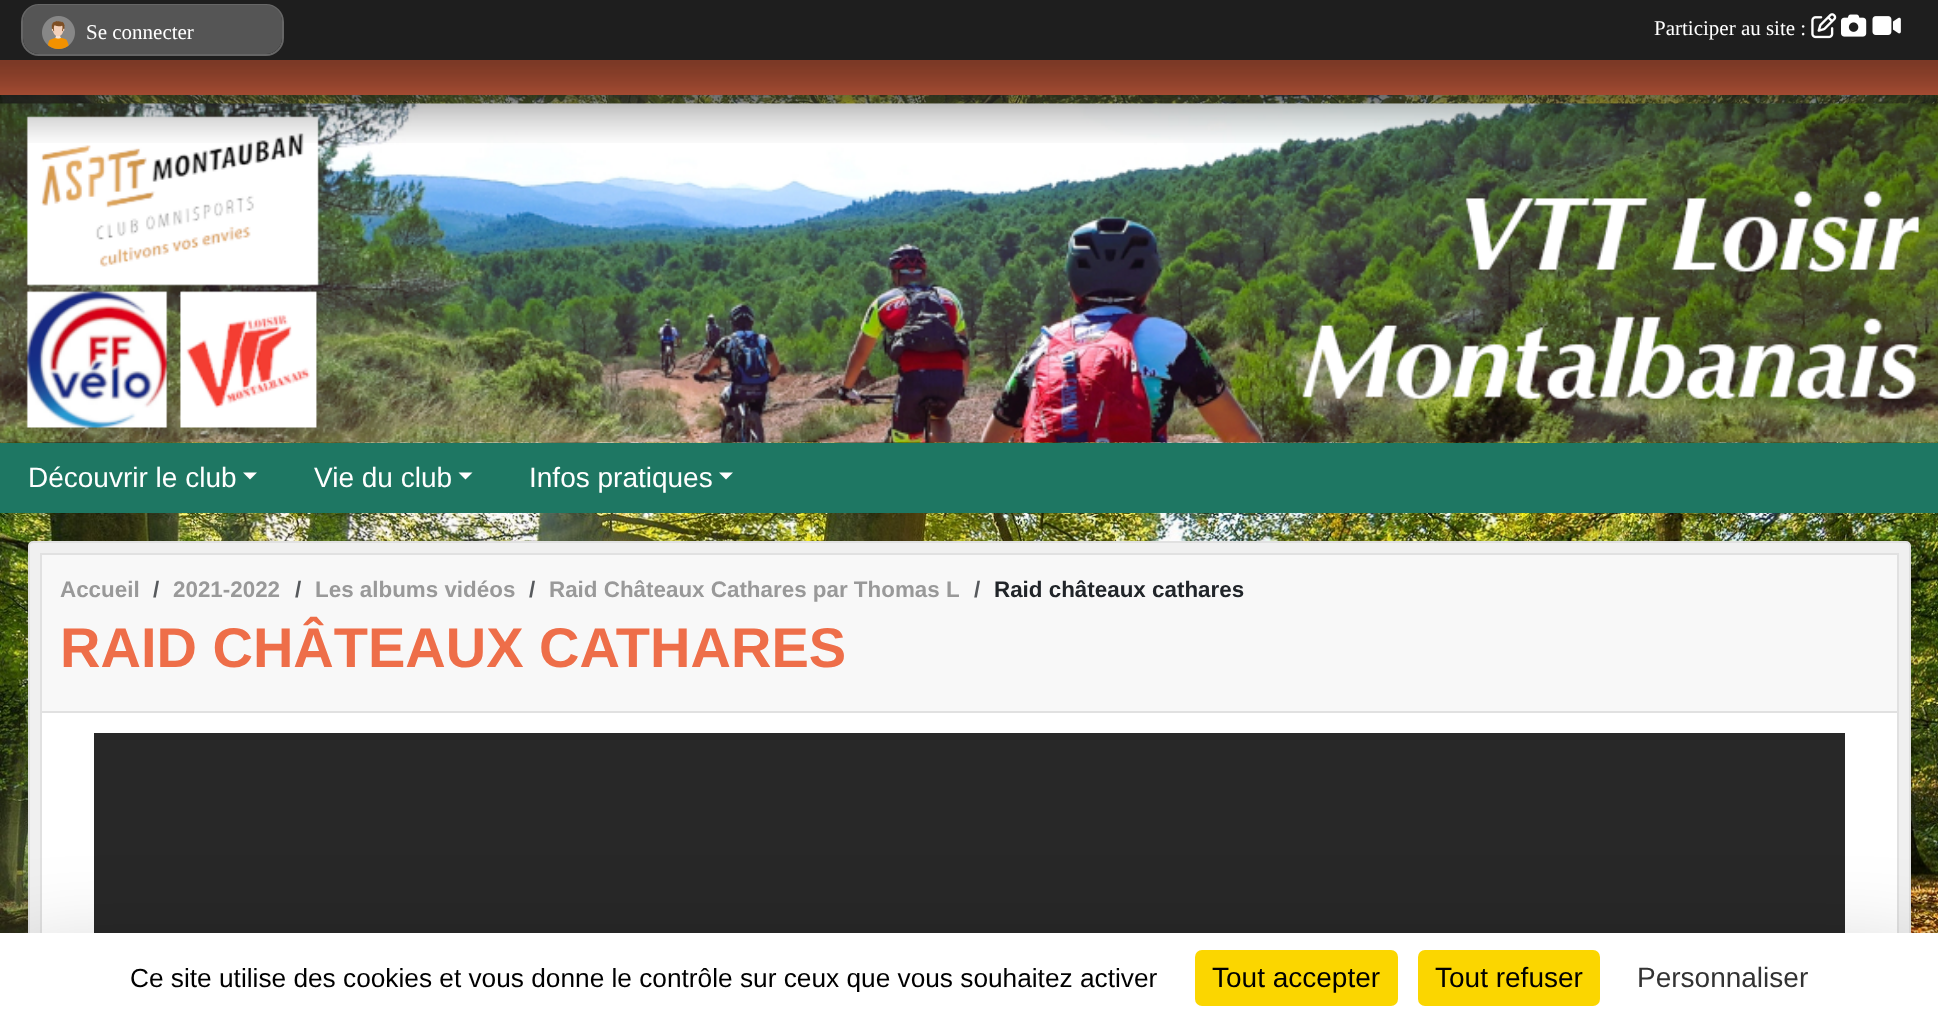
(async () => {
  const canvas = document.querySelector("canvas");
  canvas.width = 1938;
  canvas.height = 1023;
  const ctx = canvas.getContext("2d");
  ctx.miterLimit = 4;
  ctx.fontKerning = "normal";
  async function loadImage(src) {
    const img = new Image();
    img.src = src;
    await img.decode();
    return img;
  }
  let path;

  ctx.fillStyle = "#ffffff";
  ctx.fillRect(0, 0, 1938, 1023);
  ctx.drawImage(await loadImage("img/1.png"), 0, 95, 1938, 838);
  ctx.fillStyle = "rgba(80, 80, 80, 0.5)";
  ctx.filter = "blur(4.5px)";
  ctx.beginPath();
  ctx.rect(0, 72, 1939, 35);
  ctx.fill();
  ctx.filter = "none";
  ctx.fillStyle = "#1e1e1e";
  ctx.fillRect(0, 0, 1938, 60);
  ctx.beginPath();
  ctx.roundRect(22, 5, 261, 50, 17);
  ctx.strokeStyle = "#666666";
  ctx.lineWidth = 2;
  ctx.stroke();
  ctx.fillStyle = "#555555";
  ctx.beginPath();
  ctx.roundRect(23, 5, 259, 49, 16);
  ctx.fill();
  ctx.drawImage(await loadImage("img/2.png"), 42, 16, 33, 33);
  ctx.drawImage(await loadImage("img/3.png"), 1811, 13, 26, 26);
  ctx.drawImage(await loadImage("img/4.png"), 1841, 14, 26, 23);
  ctx.drawImage(await loadImage("img/5.png"), 1872, 16, 29, 19);
  ctx.fillStyle = "#ee6e49";
  ctx.fillRect(0, 60, 1938, 35);
  ctx.drawImage(await loadImage("img/7.png"), 0, 103, 1938, 340);
  ctx.drawImage(await loadImage("img/6.png"), 0, 60, 1938, 83);
  ctx.fillStyle = "#1e7763";
  ctx.fillRect(0, 443, 1938, 70);
  ctx.fillStyle = "#ffffff";
  path = new Path2D("M243 472.5H257L250 479.5Z");
  ctx.fill(path);
  path = new Path2D("M458.5 472.5H472.5L465.5 479.5Z");
  ctx.fill(path);
  path = new Path2D("M719 472.5H733L726 479.5Z");
  ctx.fill(path);
  ctx.fillStyle = "#f0f0f0";
  ctx.beginPath();
  ctx.roundRect(29, 542, 1881, 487, 4);
  ctx.fill();
  ctx.strokeStyle = "#e1e1e1";
  ctx.stroke();
  ctx.fillStyle = "#ffffff";
  ctx.fillRect(42, 713, 1855, 220);
  ctx.strokeRect(41, 554, 1857, 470);
  for (const [x, y, w, h, color] of [
    [42, 555, 1855, 156, "#f8f8f8"],
    [42, 711, 1855, 2, "#e1e1e1"],
    [94, 733, 1751, 200, "#282828"],
  ]) {
    ctx.fillStyle = color;
    ctx.fillRect(x, y, w, h);
  }
  ctx.fillStyle = "rgba(0, 0, 0, 0.25)";
  ctx.filter = "blur(52.5px)";
  ctx.beginPath();
  ctx.rect(0, 968, 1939, 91);
  ctx.fill();
  ctx.filter = "none";
  ctx.fillStyle = "#ffffff";
  ctx.fillRect(0, 933, 1938, 90);
  ctx.fillStyle = "#fbd600";
  ctx.beginPath();
  ctx.roundRect(1195, 950, 203, 56, 7);
  ctx.fill();
  ctx.beginPath();
  ctx.roundRect(1418, 950, 182, 56, 7);
  ctx.fill();
  ctx.font = "21px Liberation Serif";
  ctx.fillStyle = "#ffffff";
  ctx.fillText("Se connecter", 86, 39);
  ctx.fillText("Participer au site :", 1654, 35);
  ctx.font = "28px Liberation Sans";
  for (const [text, x, y] of [
    ["Découvrir le club", 28, 487],
    ["Vie du club", 314, 487],
    ["Infos pratiques", 529, 487],
  ]) {
    ctx.fillText(text, x, y);
  }
  ctx.font = "bold 22.4px Liberation Sans";
  ctx.fillStyle = "#999999";
  ctx.fillText("Accueil", 60, 597);
  ctx.fillStyle = "#575a5d";
  ctx.fillText("/", 153, 597);
  ctx.fillStyle = "#999999";
  ctx.fillText("2021-2022", 173, 597);
  ctx.fillStyle = "#575a5d";
  ctx.fillText("/", 295, 597);
  ctx.fillStyle = "#999999";
  ctx.fillText("Les albums vidéos", 315, 597);
  ctx.fillStyle = "#575a5d";
  ctx.fillText("/", 529, 597);
  ctx.fillStyle = "#999999";
  ctx.fillText("Raid Châteaux Cathares par Thomas L", 549, 597);
  ctx.fillStyle = "#575a5d";
  ctx.fillText("/", 974, 597);
  ctx.fillStyle = "#212529";
  ctx.fillText("Raid châteaux cathares", 994, 597);
  ctx.font = "bold 56px Liberation Sans";
  ctx.fillStyle = "#ee6e49";
  ctx.fillText("RAID CHÂTEAUX CATHARES", 60, 667);
  ctx.save();
  ctx.beginPath();
  ctx.rect(114, 963, 1062, 29);
  ctx.clip();
  ctx.font = "26.25px Liberation Sans";
  ctx.fillStyle = "#000000";
  ctx.fillText("Ce site utilise des cookies et vous donne le contrôle sur ceux que vous souhaitez activer", 130, 987);
  ctx.restore();
  ctx.font = "28px Liberation Sans";
  ctx.fillStyle = "#000000";
  ctx.fillText("Tout accepter", 1212, 987);
  ctx.fillText("Tout refuser", 1435, 987);
  ctx.fillStyle = "#333333";
  ctx.fillText("Personnaliser", 1637, 987);
})();
